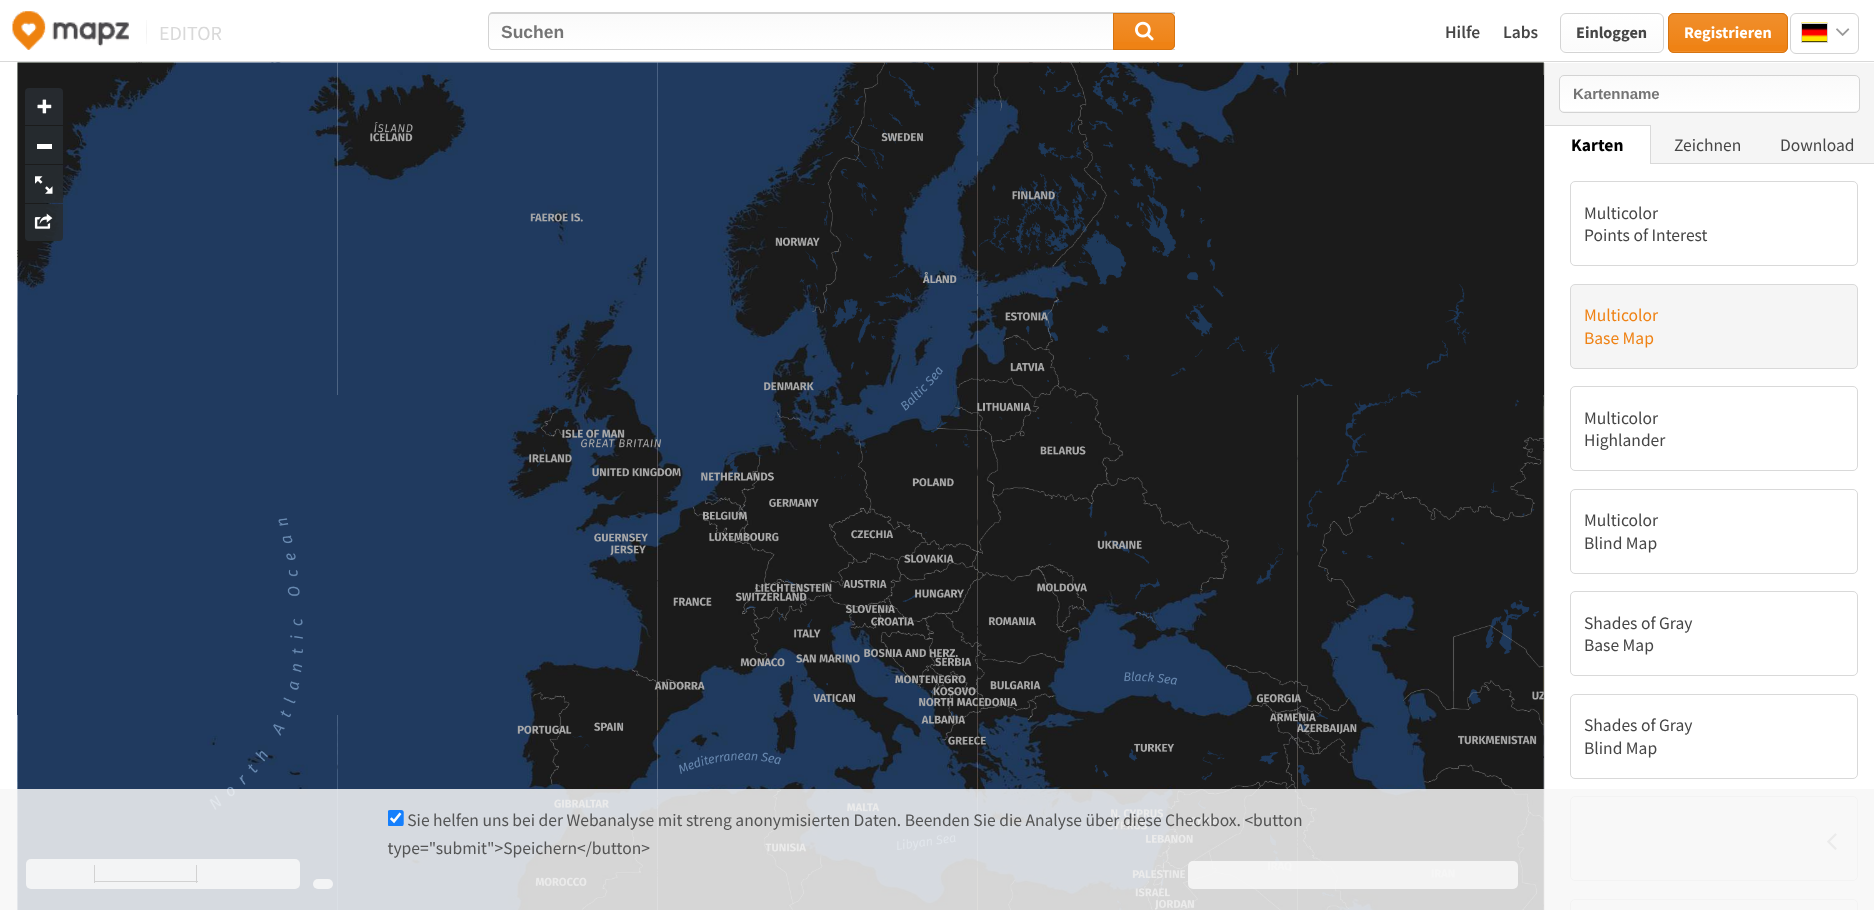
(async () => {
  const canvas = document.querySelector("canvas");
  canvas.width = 1874;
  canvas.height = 910;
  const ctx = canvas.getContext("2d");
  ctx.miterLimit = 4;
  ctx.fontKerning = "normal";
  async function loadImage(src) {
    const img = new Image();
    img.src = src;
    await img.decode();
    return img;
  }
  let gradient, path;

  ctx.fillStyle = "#ffffff";
  ctx.fillRect(0, 0, 1874, 910);
  ctx.fillStyle = "#d9d9d9";
  ctx.fillRect(0, 61, 1874, 1);
  ctx.drawImage(await loadImage("img/1.png"), 12, 11, 117, 39);
  ctx.drawImage(await loadImage("img/2.png"), 146, 20, 1, 24);
  gradient = ctx.createLinearGradient(832, 14, 832, 49);
  gradient.addColorStop(0, "#fafafa");
  gradient.addColorStop(1, "#ffffff");
  ctx.fillStyle = gradient;
  ctx.beginPath();
  ctx.roundRect(489, 14, 686, 35, [4, 0, 0, 4]);
  ctx.fill();
  ctx.fillStyle = "#d3d3d3";
  path = new Path2D("M492 12H1175V50H492C490 50 488 48 488 45V18C488 15 490 12 492 12ZM492 14H1175V49H492C490 49 489 47 489 45V18C489 15 490 14 492 14Z");
  ctx.fill(path, "evenodd");
  ctx.fillStyle = "#ef8214";
  ctx.beginPath();
  ctx.roundRect(1113, 13, 62, 37, [0, 5, 5, 0]);
  ctx.fill();
  gradient = ctx.createLinearGradient(1144, 13, 1143, 49);
  gradient.addColorStop(0, "rgba(255, 255, 255, 0.1)");
  gradient.addColorStop(1, "rgba(255, 255, 255, 0)");
  ctx.fillStyle = gradient;
  ctx.fillRect(1114, 14, 60, 28);
  ctx.beginPath();
  ctx.roundRect(1113.5, 13.5, 61, 36, [0, 4.5, 4.5, 0]);
  ctx.strokeStyle = "#d67411";
  ctx.stroke();
  ctx.drawImage(await loadImage("img/3.png"), 1135, 21, 19, 20);
  gradient = ctx.createLinearGradient(1612, 13, 1612, 52);
  gradient.addColorStop(0, "#ffffff");
  gradient.addColorStop(1, "#fbfbfb");
  ctx.fillStyle = gradient;
  ctx.beginPath();
  ctx.roundRect(1561, 14, 102, 37, 5);
  ctx.fill();
  ctx.beginPath();
  ctx.roundRect(1560.5, 13.5, 103, 39, 5.5);
  ctx.strokeStyle = "#d4d4d4";
  ctx.stroke();
  ctx.fillStyle = "#ef8214";
  ctx.beginPath();
  ctx.roundRect(1668, 13, 120, 40, 6);
  ctx.fill();
  gradient = ctx.createLinearGradient(1728, 13, 1727, 52);
  gradient.addColorStop(0, "rgba(255, 255, 255, 0.1)");
  gradient.addColorStop(1, "rgba(255, 255, 255, 0)");
  ctx.fillStyle = gradient;
  ctx.fillRect(1669, 14, 117, 31);
  ctx.save();
  ctx.beginPath();
  ctx.roundRect(1668, 13, 120, 40, 6);
  ctx.clip();
  gradient = ctx.createLinearGradient(1845, 13, 1845, 52);
  gradient.addColorStop(0, "rgba(255, 255, 255, 0.1)");
  gradient.addColorStop(1, "rgba(255, 255, 255, 0)");
  ctx.fillStyle = gradient;
  ctx.fillRect(1786, 14, 2, 37);
  gradient = ctx.createLinearGradient(1728, 50, 1727, 90);
  gradient.addColorStop(0, "rgba(255, 255, 255, 0.1)");
  gradient.addColorStop(1, "rgba(255, 255, 255, 0)");
  ctx.fillStyle = gradient;
  ctx.fillRect(1669, 51, 117, 2);
  ctx.restore();
  ctx.beginPath();
  ctx.roundRect(1668.5, 13.5, 119, 39, 5.5);
  ctx.strokeStyle = "#d67411";
  ctx.stroke();
  ctx.beginPath();
  ctx.roundRect(1790.5, 13.5, 68, 40, 5.5);
  ctx.strokeStyle = "#d4d4d4";
  ctx.stroke();
  ctx.drawImage(await loadImage("img/4.png"), 1801, 22, 27, 20);
  ctx.strokeRect(1801.5, 23.5, 26, 19);
  ctx.drawImage(await loadImage("img/5.png"), 1836, 28, 14, 8);
  ctx.drawImage(await loadImage("img/8.png"), 657, 62, 321, 13);
  ctx.drawImage(await loadImage("img/7.png"), 337, 62, 321, 13);
  ctx.drawImage(await loadImage("img/6.png"), 17, 62, 321, 13);
  ctx.drawImage(await loadImage("img/9.png"), 977, 62, 321, 13);
  ctx.drawImage(await loadImage("img/10.png"), 1297, 62, 247, 13);
  ctx.drawImage(await loadImage("img/13.png"), 657, 75, 321, 320);
  ctx.drawImage(await loadImage("img/12.png"), 337, 75, 321, 320);
  ctx.drawImage(await loadImage("img/11.png"), 17, 75, 321, 320);
  ctx.drawImage(await loadImage("img/14.png"), 977, 75, 1, 320);
  ctx.drawImage(await loadImage("img/15.png"), 657, 395, 321, 320);
  ctx.drawImage(await loadImage("img/16.png"), 657, 395, 1, 320);
  ctx.drawImage(await loadImage("img/17.png"), 977, 395, 321, 320);
  ctx.drawImage(await loadImage("img/18.png"), 1297, 395, 247, 320);
  ctx.drawImage(await loadImage("img/21.png"), 657, 715, 321, 195);
  ctx.drawImage(await loadImage("img/20.png"), 337, 715, 321, 195);
  ctx.drawImage(await loadImage("img/19.png"), 17, 715, 321, 195);
  ctx.drawImage(await loadImage("img/22.png"), 977, 715, 321, 195);
  ctx.drawImage(await loadImage("img/23.png"), 1297, 715, 247, 195);
  ctx.drawImage(await loadImage("img/26.png"), 657, 62, 321, 13);
  ctx.drawImage(await loadImage("img/25.png"), 337, 62, 321, 13);
  ctx.drawImage(await loadImage("img/24.png"), 17, 62, 321, 13);
  ctx.drawImage(await loadImage("img/27.png"), 977, 62, 321, 13);
  ctx.drawImage(await loadImage("img/28.png"), 1297, 62, 247, 13);
  ctx.drawImage(await loadImage("img/31.png"), 657, 75, 321, 320);
  ctx.drawImage(await loadImage("img/30.png"), 337, 75, 321, 320);
  ctx.drawImage(await loadImage("img/29.png"), 17, 75, 321, 320);
  ctx.drawImage(await loadImage("img/32.png"), 977, 75, 320, 320);
  ctx.fillStyle = "#1b1b1b";
  ctx.fillRect(1297, 75, 247, 320);
  ctx.fillStyle = "#203a5f";
  ctx.fillRect(17, 395, 321, 320);
  ctx.drawImage(await loadImage("img/34.png"), 657, 395, 321, 320);
  ctx.drawImage(await loadImage("img/33.png"), 338, 395, 320, 320);
  ctx.drawImage(await loadImage("img/35.png"), 977, 395, 321, 320);
  ctx.drawImage(await loadImage("img/36.png"), 1297, 395, 247, 320);
  ctx.drawImage(await loadImage("img/39.png"), 657, 715, 321, 195);
  ctx.drawImage(await loadImage("img/38.png"), 337, 715, 321, 195);
  ctx.drawImage(await loadImage("img/37.png"), 17, 715, 321, 195);
  ctx.drawImage(await loadImage("img/40.png"), 977, 715, 321, 195);
  ctx.drawImage(await loadImage("img/41.png"), 1297, 715, 247, 195);
  ctx.drawImage(await loadImage("img/42.png"), 877, 62, 58, 13);
  ctx.drawImage(await loadImage("img/43.png"), 995, 62, 189, 13);
  ctx.drawImage(await loadImage("img/44.png"), 586, 353, 10, 13);
  ctx.drawImage(await loadImage("img/45.png"), 777, 75, 201, 313);
  ctx.drawImage(await loadImage("img/46.png"), 977, 75, 302, 320);
  ctx.drawImage(await loadImage("img/47.png"), 1300, 284, 170, 111);
  ctx.drawImage(await loadImage("img/49.png"), 657, 407, 321, 308);
  ctx.drawImage(await loadImage("img/48.png"), 533, 412, 125, 303);
  ctx.drawImage(await loadImage("img/50.png"), 977, 395, 321, 320);
  ctx.drawImage(await loadImage("img/51.png"), 1297, 395, 247, 320);
  ctx.drawImage(await loadImage("img/52.png"), 549, 715, 94, 195);
  ctx.drawImage(await loadImage("img/53.png"), 763, 715, 205, 195);
  ctx.drawImage(await loadImage("img/54.png"), 1008, 715, 290, 195);
  ctx.drawImage(await loadImage("img/55.png"), 1297, 715, 247, 195);
  ctx.drawImage(await loadImage("img/56.png"), 370, 122, 213, 100);
  ctx.drawImage(await loadImage("img/57.png"), 764, 132, 193, 263);
  ctx.drawImage(await loadImage("img/58.png"), 1005, 191, 50, 181);
  ctx.drawImage(await loadImage("img/59.png"), 278, 518, 25, 197);
  ctx.drawImage(await loadImage("img/61.png"), 657, 395, 321, 312);
  ctx.drawImage(await loadImage("img/60.png"), 529, 429, 129, 261);
  ctx.drawImage(await loadImage("img/62.png"), 977, 402, 321, 313);
  ctx.drawImage(await loadImage("img/63.png"), 1297, 691, 247, 24);
  ctx.drawImage(await loadImage("img/64.png"), 209, 715, 82, 95);
  ctx.drawImage(await loadImage("img/65.png"), 517, 722, 107, 165);
  ctx.drawImage(await loadImage("img/66.png"), 679, 715, 299, 137);
  ctx.drawImage(await loadImage("img/67.png"), 977, 715, 321, 195);
  ctx.drawImage(await loadImage("img/68.png"), 1297, 715, 240, 163);
  ctx.fillStyle = "#262a2f";
  ctx.beginPath();
  ctx.roundRect(25, 88, 38, 37, [4, 4, 0, 0]);
  ctx.fill();
  ctx.drawImage(await loadImage("img/69.png"), 37, 99, 15, 15);
  for (const [x, y, w, h, color] of [
    [25, 126, 38, 38, "rgba(39, 44, 49, 0.9)"],
    [37, 144, 15, 5, "#ffffff"],
    [25, 165, 38, 38, "rgba(39, 44, 49, 0.9)"],
  ]) {
    ctx.fillStyle = color;
    ctx.fillRect(x, y, w, h);
  }
  ctx.drawImage(await loadImage("img/70.png"), 35, 176, 18, 18);
  ctx.beginPath();
  ctx.roundRect(25, 204, 38, 37, [0, 0, 4, 4]);
  ctx.fill();
  ctx.drawImage(await loadImage("img/71.png"), 34, 213, 19, 16);
  ctx.fillStyle = "#dee1e7";
  ctx.beginPath();
  ctx.roundRect(26, 859, 274, 30, 5);
  ctx.fill();
  for (const [x, y, w, h, color] of [
    [196, 865, 1, 18, "#000000"],
    [94, 881, 104, 1, "#000000"],
    [94, 865, 1, 18, "#000000"],
  ]) {
    ctx.fillStyle = color;
    ctx.fillRect(x, y, w, h);
  }
  ctx.fillStyle = "#dee1e7";
  ctx.beginPath();
  ctx.roundRect(313, 879, 20, 10, 5);
  ctx.fill();
  ctx.fillStyle = "rgba(255, 255, 255, 0.85)";
  ctx.beginPath();
  ctx.roundRect(1188, 861, 330, 28, 5);
  ctx.fill();
  ctx.fillStyle = "#f5f5f5";
  ctx.fillRect(1545, 63, 329, 100);
  ctx.fillStyle = "#d9d9d9";
  ctx.fillRect(1544, 63, 1, 847);
  gradient = ctx.createLinearGradient(1709, 76, 1709, 111);
  gradient.addColorStop(0, "#fafafa");
  gradient.addColorStop(1, "#ffffff");
  ctx.fillStyle = gradient;
  ctx.beginPath();
  ctx.roundRect(1560, 76, 299, 35, 4);
  ctx.fill();
  ctx.beginPath();
  ctx.roundRect(1559.5, 75.5, 300, 37, 4.5);
  ctx.strokeStyle = "#d3d3d3";
  ctx.stroke();
  for (const [x, y, w, h, color] of [
    [1545, 126, 105, 37, "#ffffff"],
    [1545, 125, 106, 1, "#d9d9d9"],
    [1650, 125, 1, 39, "#d9d9d9"],
    [1651, 163, 223, 1, "#d9d9d9"],
  ]) {
    ctx.fillStyle = color;
    ctx.fillRect(x, y, w, h);
  }
  ctx.beginPath();
  ctx.roundRect(1570.5, 181.5, 287, 84, 4.5);
  ctx.strokeStyle = "#d9d9d9";
  ctx.stroke();
  ctx.fillStyle = "#f5f5f5";
  ctx.beginPath();
  ctx.roundRect(1570.5, 284.5, 287, 84, 4.5);
  ctx.fill();
  ctx.stroke();
  ctx.beginPath();
  ctx.roundRect(1570.5, 386.5, 287, 84, 4.5);
  ctx.stroke();
  ctx.beginPath();
  ctx.roundRect(1570.5, 489.5, 287, 84, 4.5);
  ctx.stroke();
  ctx.beginPath();
  ctx.roundRect(1570.5, 591.5, 287, 84, 4.5);
  ctx.stroke();
  ctx.beginPath();
  ctx.roundRect(1570.5, 694.5, 287, 84, 4.5);
  ctx.stroke();
  ctx.beginPath();
  ctx.roundRect(1570.5, 796.5, 287, 84, 4.5);
  ctx.stroke();
  ctx.drawImage(await loadImage("img/72.png"), 1827, 833, 10, 17);
  ctx.beginPath();
  ctx.roundRect(1570.5, 899.5, 287, 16, 4.5);
  ctx.stroke();
  ctx.fillStyle = "rgba(247, 247, 247, 0.85)";
  ctx.fillRect(0, 789, 1874, 121);
  ctx.drawImage(await loadImage("img/73.png"), 387, 810, 915, 48);
  ctx.font = "20px Source Sans Pro";
  ctx.fillStyle = "#d9d9d9";
  ctx.fillText("EDITOR", 159, 40);
  ctx.font = "bold 17.5px Liberation Sans";
  ctx.fillStyle = "#757575";
  ctx.fillText("Suchen", 501, 38);
  ctx.font = "600 17.5px Source Sans Pro";
  ctx.fillStyle = "#464646";
  ctx.fillText("Hilfe", 1445, 38);
  ctx.fillText("Labs", 1503, 38);
  ctx.font = "bold 16.25px Source Sans Pro";
  ctx.fillText("Einloggen", 1576, 38);
  ctx.fillStyle = "#ffffff";
  ctx.fillText("Registrieren", 1684, 38);
  ctx.font = "bold 15px Liberation Sans";
  ctx.fillStyle = "#757575";
  ctx.fillText("Kartenname", 1573, 99);
  ctx.font = "bold 17.5px Source Sans Pro";
  ctx.fillStyle = "#000000";
  ctx.fillText("Karten", 1571, 151);
  ctx.font = "17.5px Source Sans Pro";
  ctx.fillStyle = "#464646";
  for (const [text, x, y] of [
    ["Zeichnen", 1674, 151],
    ["Download", 1780, 151],
    ["Multicolor", 1584, 219],
    ["Points of Interest", 1584, 241],
  ]) {
    ctx.fillText(text, x, y);
  }
  ctx.fillStyle = "#ef8214";
  ctx.fillText("Multicolor", 1584, 321);
  ctx.fillText("Base Map", 1584, 344);
  ctx.fillStyle = "#464646";
  for (const [text, x, y] of [
    ["Multicolor", 1584, 424],
    ["Highlander", 1584, 446],
    ["Multicolor", 1584, 526],
    ["Blind Map", 1584, 549],
    ["Shades of Gray", 1584, 629],
    ["Base Map", 1584, 651],
    ["Shades of Gray", 1584, 731],
    ["Blind Map", 1584, 754],
  ]) {
    ctx.fillText(text, x, y);
  }
})();
